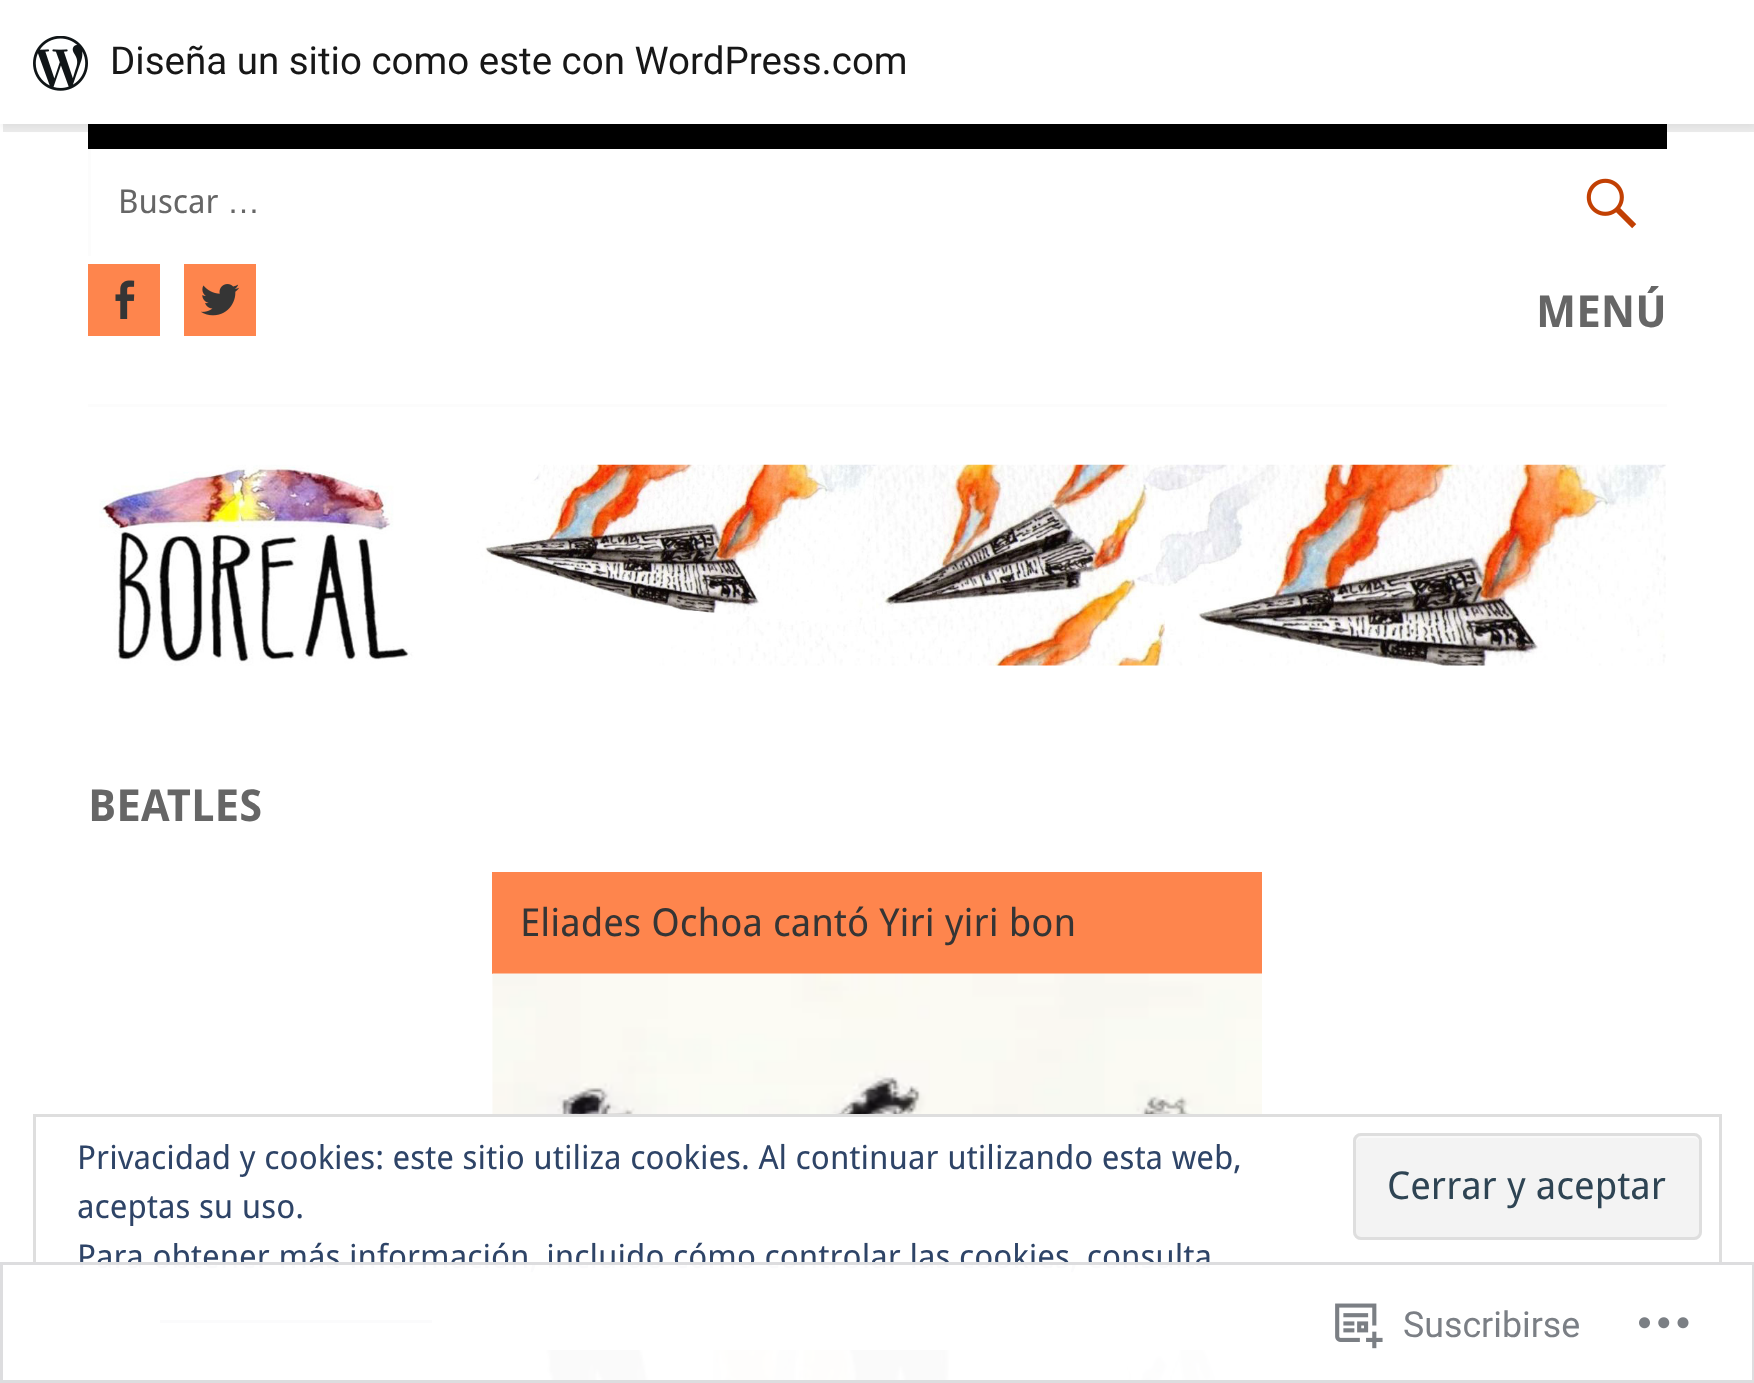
(async () => {
  const canvas = document.querySelector("canvas");
  canvas.width = 1754;
  canvas.height = 1383;
  const ctx = canvas.getContext("2d");
  ctx.miterLimit = 4;
  ctx.fontKerning = "normal";
  async function loadImage(src) {
    const img = new Image();
    img.src = src;
    await img.decode();
    return img;
  }
  let path;

  ctx.fillStyle = "#ffffff";
  ctx.fillRect(0, 0, 1754, 1383);
  ctx.fillStyle = "#000000";
  ctx.fillRect(88, 124, 1579, 25);
  ctx.fillStyle = "rgba(0, 0, 0, 0.05)";
  ctx.filter = "blur(3px)";
  ctx.beginPath();
  ctx.rect(0, 3, 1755, 124);
  ctx.fill();
  ctx.filter = "none";
  ctx.fillStyle = "rgba(0, 0, 0, 0.08)";
  path = new Path2D("M3 124V132H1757V8H1754V124Z");
  ctx.fill(path);
  ctx.fillStyle = "#ffffff";
  ctx.fillRect(0, 0, 1754, 124);
  ctx.drawImage(await loadImage("img/1.png"), 33, 36, 55, 55);
  ctx.fillStyle = "#fcfcfc";
  ctx.fillRect(88, 404, 1579, 3);
  ctx.fillRect(88, 149, 3, 107);
  ctx.drawImage(await loadImage("img/2.png"), 1586, 178, 51, 51);
  ctx.fillStyle = "#fe854d";
  ctx.fillRect(88, 264, 72, 72);
  ctx.drawImage(await loadImage("img/3.png"), 115, 280, 20, 39);
  ctx.fillRect(184, 264, 72, 72);
  ctx.drawImage(await loadImage("img/4.png"), 201, 284, 39, 32);
  ctx.drawImage(await loadImage("img/5.png"), 99, 464, 1567, 202);
  ctx.fillRect(492, 872, 770, 102);
  ctx.drawImage(await loadImage("img/6.png"), 492, 973, 770, 410);
  ctx.fillStyle = "#ffffff";
  ctx.fillRect(492, 1117, 770, 230);
  ctx.strokeStyle = "#dedede";
  ctx.lineWidth = 3;
  ctx.strokeRect(34.5, 1115.5, 1686, 233);
  ctx.fillStyle = "#f3f3f3";
  ctx.beginPath();
  ctx.roundRect(1353, 1133, 349, 107, 8);
  ctx.fill();
  ctx.fillStyle = "#f9f9f9";
  path = new Path2D("M1361 1138H1694C1697 1138 1700 1141 1700 1144V1142C1700 1139 1697 1136 1694 1136H1362C1359 1136 1356 1139 1356 1142V1144C1356 1141 1358 1138 1361 1138Z");
  ctx.fill(path);
  ctx.beginPath();
  ctx.roundRect(1354.5, 1134.5, 346, 104, 6.5);
  ctx.stroke();
  ctx.fillStyle = "#2e4467";
  ctx.fillRect(160, 1320, 272, 3);
  ctx.font = "38.5px Roboto";
  ctx.fillStyle = "#171717";
  ctx.fillText("Diseña un sitio como este con WordPress.com", 110, 74);
  ctx.font = "33px Droid Sans";
  ctx.fillStyle = "#666666";
  ctx.fillText("Buscar", 118, 213);
  ctx.font = "33px Liberation Sans";
  ctx.fillText("…", 227, 213);
  ctx.font = "bold 44px Droid Sans";
  ctx.fillText("MENÚ", 1536, 327);
  ctx.fillText("BEATLES", 88, 821);
  ctx.font = "38.5px Droid Sans";
  ctx.fillStyle = "#353535";
  ctx.fillText("Eliades Ochoa cantó Yiri yiri bon", 520, 936);
  ctx.font = "33px Droid Sans";
  ctx.fillStyle = "#2e4467";
  ctx.fillText("Privacidad y cookies: este sitio utiliza cookies. Al continuar utilizando esta web,", 77, 1169);
  ctx.fillText("aceptas su uso.", 77, 1218);
  ctx.font = "38.5px Droid Sans";
  ctx.fillStyle = "#2e4453";
  ctx.fillText("Cerrar y aceptar", 1387, 1199);
  ctx.font = "33px Droid Sans";
  ctx.fillStyle = "#2e4467";
  ctx.fillText("Para obtener más información, incluido cómo controlar las cookies, consulta", 77, 1268);
  ctx.fillStyle = "rgba(255, 255, 255, 0.98)";
  ctx.fillRect(33, 1262, 1689, 121);
  ctx.strokeStyle = "rgba(220, 220, 222, 0.98)";
  ctx.strokeRect(1.5, 1263.5, 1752, 118);
  ctx.drawImage(await loadImage("img/7.png"), 1335, 1303, 48, 46);
  ctx.font = "35.75px Roboto";
  ctx.fillStyle = "#7b7f85";
  ctx.fillText("Suscribirse", 1403, 1337);
  ctx.drawImage(await loadImage("img/8.png"), 1639, 1317, 50, 12);
})();
